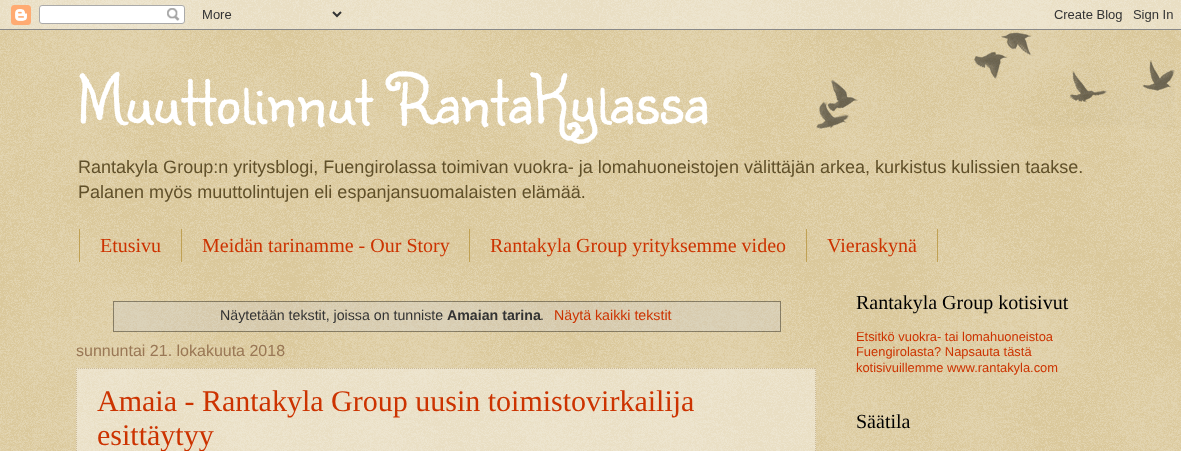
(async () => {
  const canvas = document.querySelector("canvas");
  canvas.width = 1181;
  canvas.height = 451;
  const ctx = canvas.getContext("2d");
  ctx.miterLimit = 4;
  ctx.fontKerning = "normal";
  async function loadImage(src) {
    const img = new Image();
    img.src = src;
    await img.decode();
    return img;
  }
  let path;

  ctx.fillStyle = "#c0a154";
  ctx.fillRect(0, 0, 1181, 451);
  ctx.drawImage(await loadImage("img/1.png"), 0, 0, 1181, 451);
  ctx.drawImage(await loadImage("img/2.png"), 0, 0, 1181, 30);
  ctx.drawImage(await loadImage("img/3.png"), 816, 32, 359, 97);
  for (const [x, y, w, h, color] of [
    [181, 229, 1, 33, "#c0a154"],
    [79, 229, 1, 33, "#c0a154"],
    [469, 229, 1, 33, "#c0a154"],
    [806, 229, 1, 33, "#c0a154"],
    [937, 229, 1, 33, "#c0a154"],
  ]) {
    ctx.fillStyle = color;
    ctx.fillRect(x, y, w, h);
  }
  ctx.strokeStyle = "rgba(0, 0, 0, 0.4)";
  ctx.strokeRect(113.5, 301.5, 667, 30);
  ctx.fillStyle = "rgba(204, 204, 204, 0.32)";
  ctx.fillRect(114, 302, 666, 29);
  ctx.fillStyle = "rgba(255, 255, 255, 0.4)";
  ctx.fillRect(76, 368, 740, 83);
  path = new Path2D("M76 368.5H816");
  ctx.strokeStyle = "#ccbb99";
  ctx.setLineDash([1, 1]);
  ctx.stroke(path);
  path = new Path2D("M815.5 368V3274");
  ctx.stroke(path);
  path = new Path2D("M76.5 368V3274");
  ctx.stroke(path);
  ctx.font = "70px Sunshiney";
  ctx.fillStyle = "#ffffff";
  ctx.fillText("Muuttolinnut RantaKylassa", 76, 123);
  ctx.font = "18.03px Liberation Sans";
  ctx.fillStyle = "#60502a";
  ctx.fillText("Rantakyla Group:n yritysblogi, Fuengirolassa toimivan vuokra- ja lomahuoneistojen välittäjän arkea, kurkistus kulissien taakse.", 78, 173);
  ctx.fillText("Palanen myös muuttolintujen eli espanjansuomalaisten elämää.", 78, 198);
  ctx.font = "20px Liberation Serif";
  ctx.fillStyle = "#cc3300";
  for (const [text, x, y] of [
    ["Etusivu", 100, 252],
    ["Meidän tarinamme - Our Story", 202, 252],
    ["Rantakyla Group yrityksemme video", 490, 252],
    ["Vieraskynä", 827, 252],
  ]) {
    ctx.fillText(text, x, y);
  }
  ctx.font = "14.2px Liberation Sans";
  ctx.fillStyle = "#333333";
  ctx.fillText("Näytetään tekstit, joissa on tunniste", 220, 320);
  ctx.font = "bold 14.2px Liberation Sans";
  ctx.fillText("Amaian tarina", 447, 320);
  ctx.font = "14.2px Liberation Sans";
  ctx.fillText(".", 540, 320);
  ctx.fillStyle = "#cc3300";
  ctx.fillText("Näytä kaikki tekstit", 554, 320);
  ctx.font = "16px Liberation Sans";
  ctx.fillStyle = "#997755";
  ctx.fillText("sunnuntai 21. lokakuuta 2018", 76, 356);
  ctx.font = "30px Liberation Serif";
  ctx.fillStyle = "#cc3300";
  ctx.fillText("Amaia - Rantakyla Group uusin toimistovirkailija", 97, 411);
  ctx.fillText("esittäytyy", 97, 445);
  ctx.font = "20px Liberation Serif";
  ctx.fillStyle = "#000000";
  ctx.fillText("Rantakyla Group kotisivut", 856, 309);
  ctx.font = "12.9px Liberation Sans";
  ctx.fillStyle = "#cc3300";
  for (const [text, x, y] of [
    ["Etsitkö vuokra- tai lomahuoneistoa", 856, 341],
    ["Fuengirolasta? Napsauta tästä", 856, 356],
    ["kotisivuillemme www.rantakyla.com", 856, 372],
  ]) {
    ctx.fillText(text, x, y);
  }
  ctx.font = "20px Liberation Serif";
  ctx.fillStyle = "#000000";
  ctx.fillText("Säätila", 856, 428);
})();
